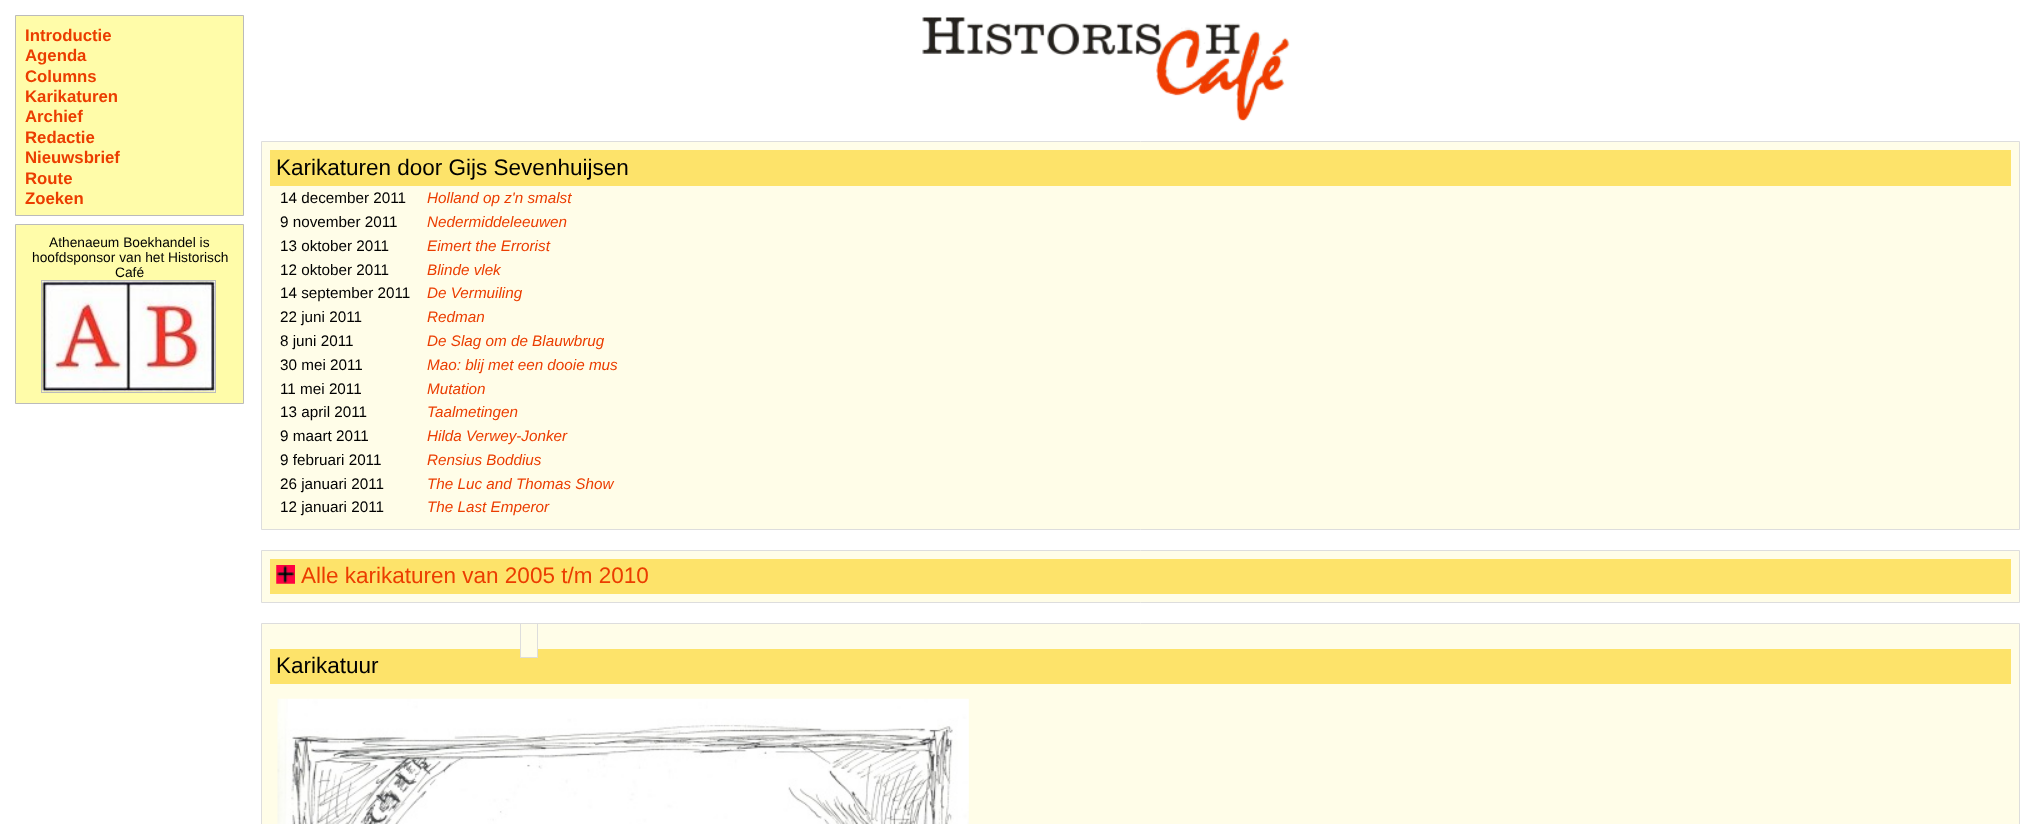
(async () => {
  const canvas = document.querySelector("canvas");
  canvas.width = 2035;
  canvas.height = 824;
  const ctx = canvas.getContext("2d");
  ctx.miterLimit = 4;
  ctx.fontKerning = "normal";
  async function loadImage(src) {
    const img = new Image();
    img.src = src;
    await img.decode();
    return img;
  }

  ctx.fillStyle = "#ffffff";
  ctx.fillRect(0, 0, 2035, 824);
  ctx.fillStyle = "#fffca9";
  ctx.beginPath();
  ctx.rect(15.5, 15.5, 228, 200);
  ctx.fill();
  ctx.strokeStyle = "#bbbbbb";
  ctx.stroke();
  ctx.beginPath();
  ctx.rect(15.5, 224.5, 228, 179);
  ctx.fill();
  ctx.stroke();
  ctx.strokeRect(41.5, 280.5, 174, 112);
  ctx.drawImage(await loadImage("img/1.png"), 42, 281, 173, 111);
  ctx.fillStyle = "#fffde8";
  ctx.beginPath();
  ctx.rect(261.5, 141.5, 1758, 388);
  ctx.fill();
  ctx.strokeStyle = "#dddddd";
  ctx.stroke();
  ctx.fillStyle = "#fde36a";
  ctx.fillRect(270, 150, 1741, 36);
  ctx.drawImage(await loadImage("img/2.png"), 922, 16, 368, 105);
  ctx.fillStyle = "#fffde8";
  ctx.beginPath();
  ctx.rect(261.5, 550.5, 1758, 52);
  ctx.fill();
  ctx.stroke();
  ctx.fillStyle = "#fde36a";
  ctx.fillRect(270, 559, 1741, 35);
  ctx.drawImage(await loadImage("img/3.png"), 276, 565, 19, 19);
  ctx.fillStyle = "#fffde8";
  ctx.beginPath();
  ctx.rect(261.5, 623.5, 1758, 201);
  ctx.fill();
  ctx.stroke();
  ctx.fillStyle = "#fde36a";
  ctx.fillRect(270, 649, 1741, 35);
  ctx.fillStyle = "#fffde8";
  ctx.fillRect(521, 649, 16, 8);
  ctx.strokeRect(520.5, 623.5, 17, 34);
  ctx.drawImage(await loadImage("img/4.png"), 277, 698, 692, 126);
  ctx.font = "bold 16.75px Liberation Sans";
  ctx.fillStyle = "#eb3d00";
  for (const [text, x, y] of [
    ["Introductie", 25, 41],
    ["Agenda", 25, 61],
    ["Columns", 25, 82],
    ["Karikaturen", 25, 102],
    ["Archief", 25, 122],
    ["Redactie", 25, 143],
    ["Nieuwsbrief", 25, 163],
    ["Route", 25, 184],
    ["Zoeken", 25, 204],
  ]) {
    ctx.fillText(text, x, y);
  }
  ctx.font = "13.75px Liberation Sans";
  ctx.fillStyle = "#000000";
  for (const [text, x, y] of [
    ["Athenaeum Boekhandel is", 49, 247],
    ["hoofdsponsor van het Historisch", 32, 262],
    ["Café", 115, 277],
  ]) {
    ctx.fillText(text, x, y);
  }
  ctx.font = "22.5px Liberation Sans";
  ctx.fillText("Karikaturen door Gijs Sevenhuijsen", 276, 175);
  ctx.font = "15.25px Liberation Sans";
  ctx.fillText("14 december 2011", 280, 203);
  ctx.font = "italic 15.25px Liberation Sans";
  ctx.fillStyle = "#eb3d00";
  ctx.fillText("Holland op z'n smalst", 427, 203);
  ctx.font = "15.25px Liberation Sans";
  ctx.fillStyle = "#000000";
  ctx.fillText("9 november 2011", 280, 227);
  ctx.font = "italic 15.25px Liberation Sans";
  ctx.fillStyle = "#eb3d00";
  ctx.fillText("Nedermiddeleeuwen", 427, 227);
  ctx.font = "15.25px Liberation Sans";
  ctx.fillStyle = "#000000";
  ctx.fillText("13 oktober 2011", 280, 251);
  ctx.font = "italic 15.25px Liberation Sans";
  ctx.fillStyle = "#eb3d00";
  ctx.fillText("Eimert the Errorist", 427, 251);
  ctx.font = "15.25px Liberation Sans";
  ctx.fillStyle = "#000000";
  ctx.fillText("12 oktober 2011", 280, 275);
  ctx.font = "italic 15.25px Liberation Sans";
  ctx.fillStyle = "#eb3d00";
  ctx.fillText("Blinde vlek", 427, 275);
  ctx.font = "15.25px Liberation Sans";
  ctx.fillStyle = "#000000";
  ctx.fillText("14 september 2011", 280, 298);
  ctx.font = "italic 15.25px Liberation Sans";
  ctx.fillStyle = "#eb3d00";
  ctx.fillText("De Vermuiling", 427, 298);
  ctx.font = "15.25px Liberation Sans";
  ctx.fillStyle = "#000000";
  ctx.fillText("22 juni 2011", 280, 322);
  ctx.font = "italic 15.25px Liberation Sans";
  ctx.fillStyle = "#eb3d00";
  ctx.fillText("Redman", 427, 322);
  ctx.font = "15.25px Liberation Sans";
  ctx.fillStyle = "#000000";
  ctx.fillText("8 juni 2011", 280, 346);
  ctx.font = "italic 15.25px Liberation Sans";
  ctx.fillStyle = "#eb3d00";
  ctx.fillText("De Slag om de Blauwbrug", 427, 346);
  ctx.font = "15.25px Liberation Sans";
  ctx.fillStyle = "#000000";
  ctx.fillText("30 mei 2011", 280, 370);
  ctx.font = "italic 15.25px Liberation Sans";
  ctx.fillStyle = "#eb3d00";
  ctx.fillText("Mao: blij met een dooie mus", 427, 370);
  ctx.font = "15.25px Liberation Sans";
  ctx.fillStyle = "#000000";
  ctx.fillText("11 mei 2011", 280, 394);
  ctx.font = "italic 15.25px Liberation Sans";
  ctx.fillStyle = "#eb3d00";
  ctx.fillText("Mutation", 427, 394);
  ctx.font = "15.25px Liberation Sans";
  ctx.fillStyle = "#000000";
  ctx.fillText("13 april 2011", 280, 417);
  ctx.font = "italic 15.25px Liberation Sans";
  ctx.fillStyle = "#eb3d00";
  ctx.fillText("Taalmetingen", 427, 417);
  ctx.font = "15.25px Liberation Sans";
  ctx.fillStyle = "#000000";
  ctx.fillText("9 maart 2011", 280, 441);
  ctx.font = "italic 15.25px Liberation Sans";
  ctx.fillStyle = "#eb3d00";
  ctx.fillText("Hilda Verwey-Jonker", 427, 441);
  ctx.font = "15.25px Liberation Sans";
  ctx.fillStyle = "#000000";
  ctx.fillText("9 februari 2011", 280, 465);
  ctx.font = "italic 15.25px Liberation Sans";
  ctx.fillStyle = "#eb3d00";
  ctx.fillText("Rensius Boddius", 427, 465);
  ctx.font = "15.25px Liberation Sans";
  ctx.fillStyle = "#000000";
  ctx.fillText("26 januari 2011", 280, 489);
  ctx.font = "italic 15.25px Liberation Sans";
  ctx.fillStyle = "#eb3d00";
  ctx.fillText("The Luc and Thomas Show", 427, 489);
  ctx.font = "15.25px Liberation Sans";
  ctx.fillStyle = "#000000";
  ctx.fillText("12 januari 2011", 280, 512);
  ctx.font = "italic 15.25px Liberation Sans";
  ctx.fillStyle = "#eb3d00";
  ctx.fillText("The Last Emperor", 427, 512);
  ctx.font = "22.5px Liberation Sans";
  ctx.fillText("Alle karikaturen van 2005 t/m 2010", 301, 583);
  ctx.fillStyle = "#000000";
  ctx.fillText("Karikatuur", 276, 673);
})();
